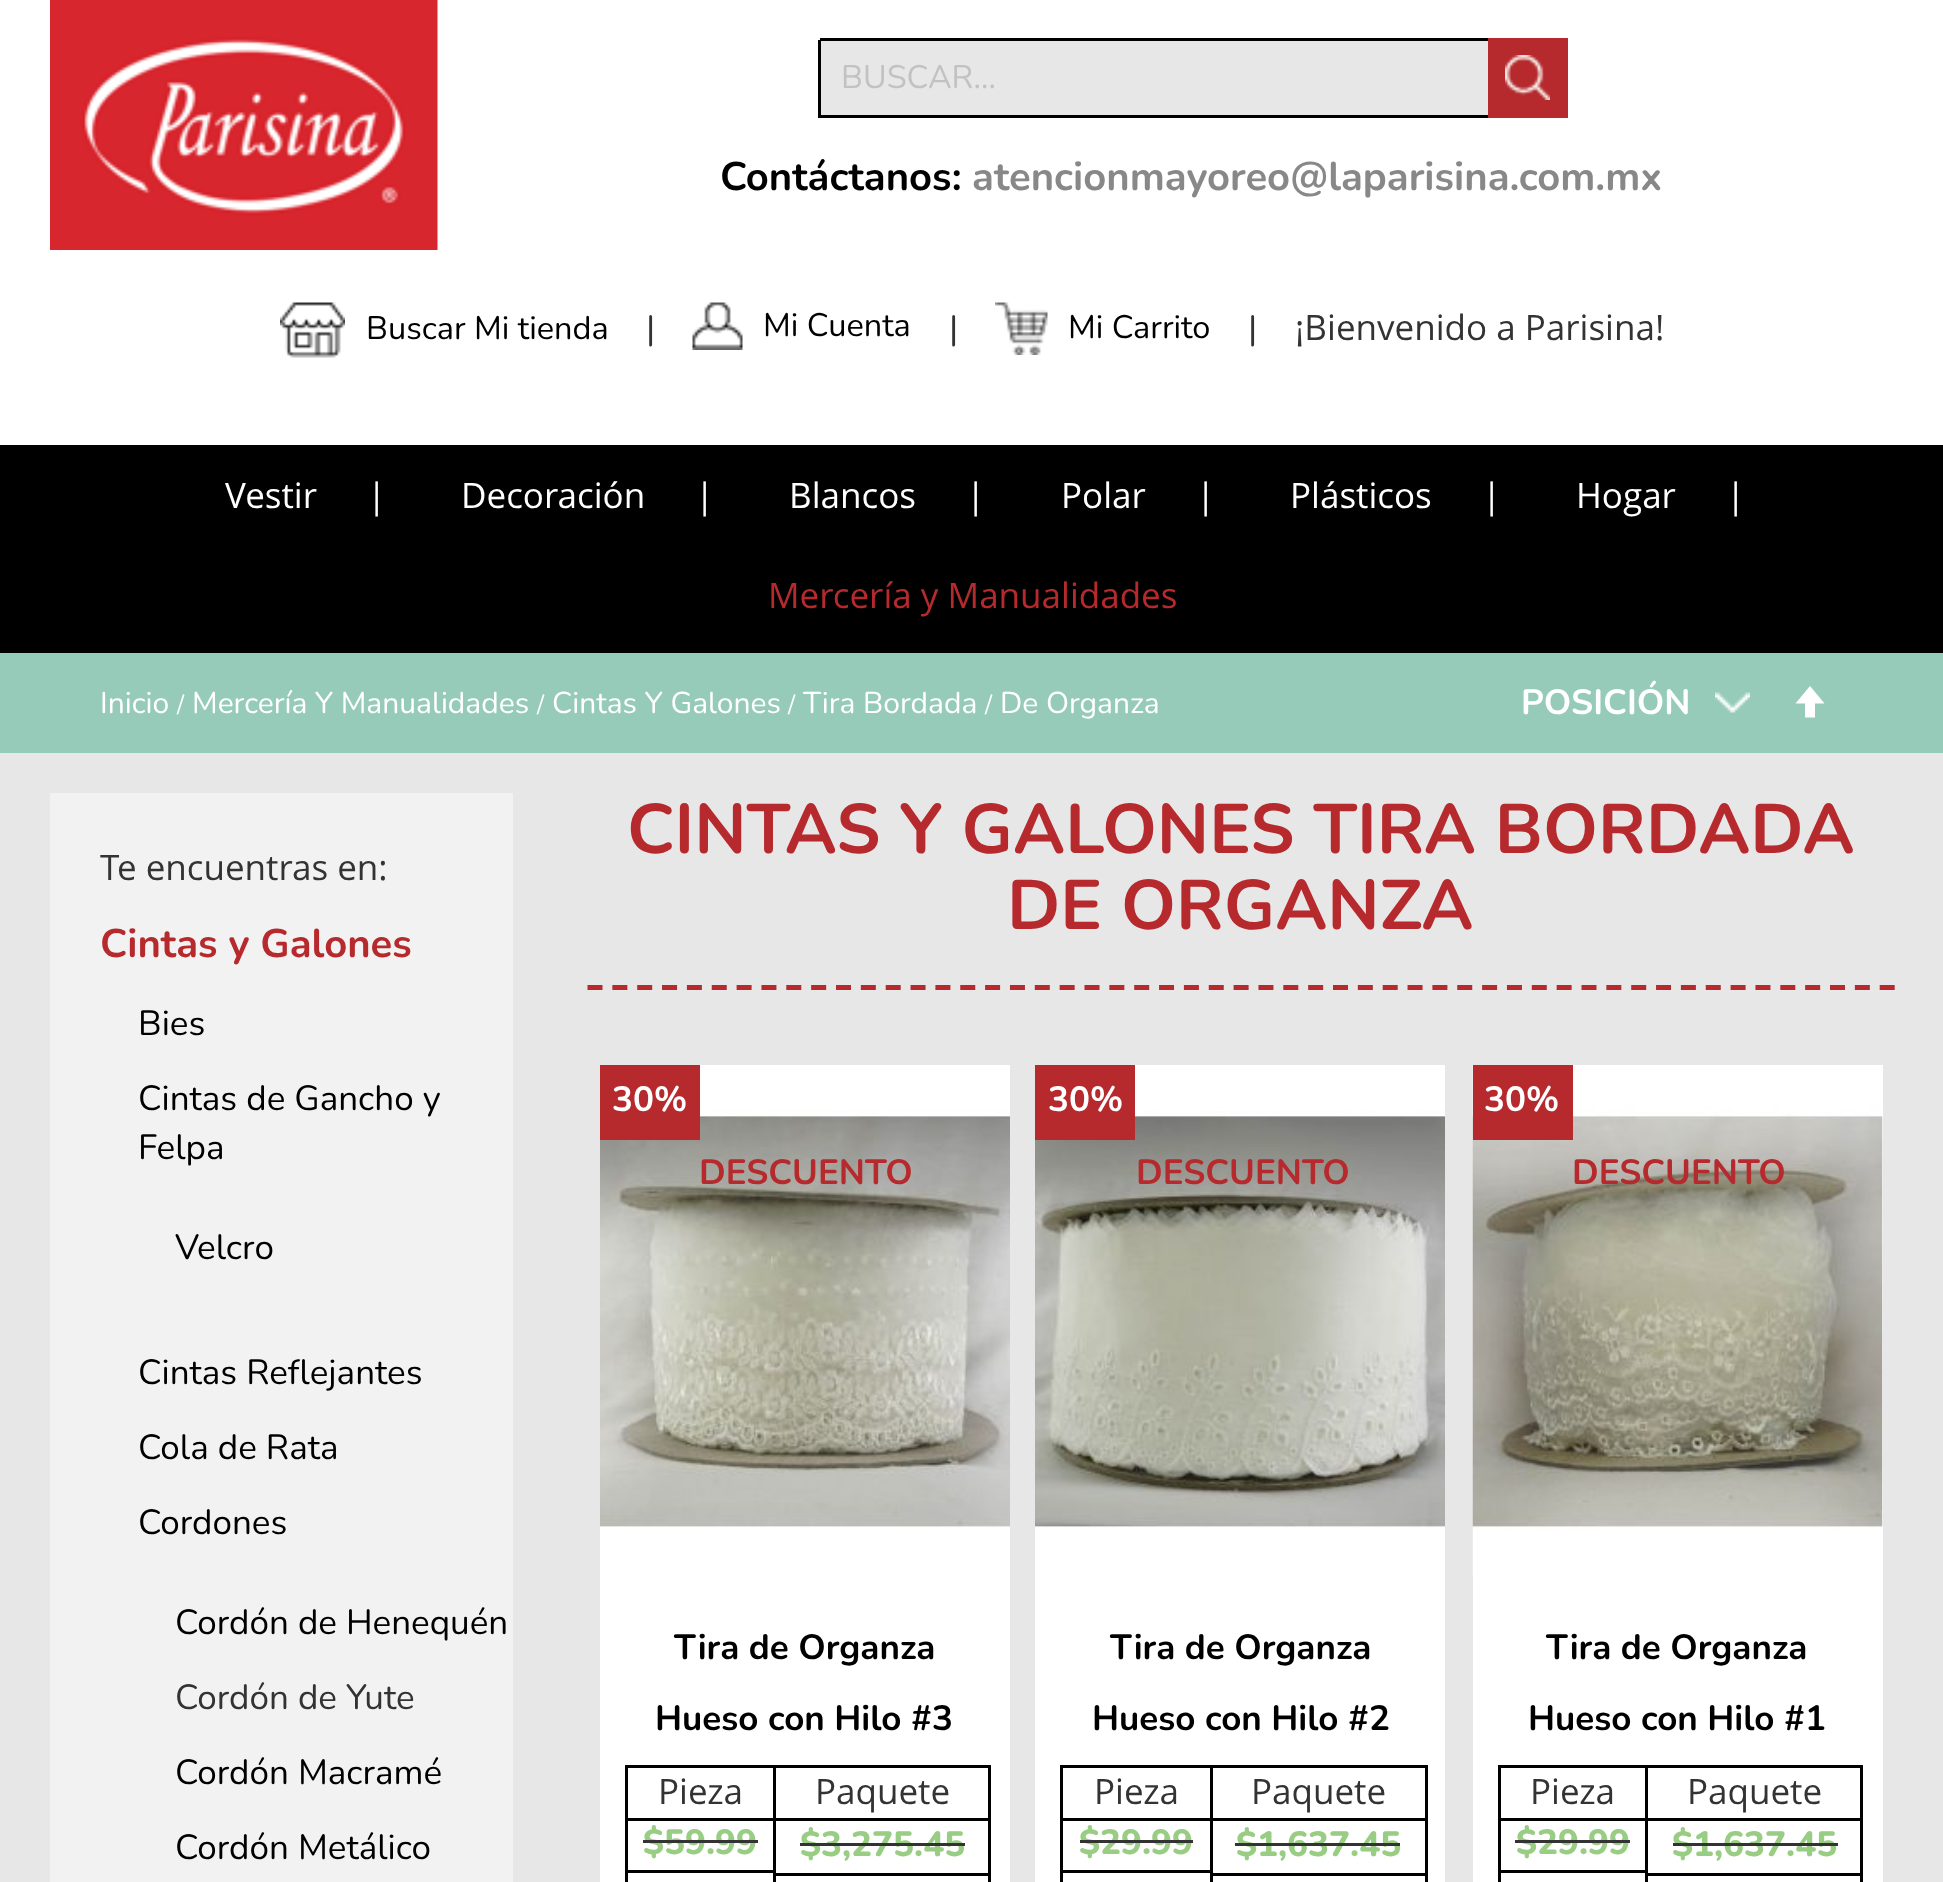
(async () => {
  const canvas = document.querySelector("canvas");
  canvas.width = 1943;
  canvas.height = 1882;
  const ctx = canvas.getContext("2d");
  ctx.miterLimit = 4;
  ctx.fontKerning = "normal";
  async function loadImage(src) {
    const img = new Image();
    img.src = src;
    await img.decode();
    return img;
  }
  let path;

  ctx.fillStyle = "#e7e7e7";
  ctx.fillRect(0, 0, 1943, 1882);
  ctx.fillStyle = "#ffffff";
  ctx.fillRect(0, 0, 1943, 445);
  ctx.drawImage(await loadImage("img/1.png"), 50, 0, 388, 250);
  for (const [x, y, w, h, color] of [
    [821, 41, 667, 74, "#e7e7e7"],
    [820, 38, 668, 3, "#000000"],
    [820, 115, 668, 3, "#000000"],
    [818, 40, 3, 78, "#000000"],
    [1488, 38, 80, 80, "#b62a2e"],
  ]) {
    ctx.fillStyle = color;
    ctx.fillRect(x, y, w, h);
  }
  ctx.drawImage(await loadImage("img/2.png"), 1505, 55, 45, 45);
  ctx.drawImage(await loadImage("img/3.png"), 280, 302, 65, 56);
  ctx.drawImage(await loadImage("img/4.png"), 692, 302, 51, 48);
  ctx.drawImage(await loadImage("img/5.png"), 995, 302, 53, 53);
  ctx.fillStyle = "#000000";
  ctx.fillRect(0, 445, 1943, 208);
  ctx.fillStyle = "#96cbba";
  ctx.fillRect(0, 653, 1943, 100);
  ctx.drawImage(await loadImage("img/6.png"), 1715, 692, 35, 21);
  ctx.fillStyle = "#ffffff";
  path = new Path2D("M1810 686L1795.5 703.5H1805V717.5H1815V703.5H1824.5Z");
  ctx.fill(path);
  ctx.fillStyle = "#f2f2f2";
  ctx.fillRect(50, 793, 463, 1089);
  path = new Path2D("M587.5 987.5H1895");
  ctx.strokeStyle = "#b62a2e";
  ctx.lineWidth = 5;
  ctx.setLineDash([15, 9.85]);
  ctx.stroke(path);
  ctx.fillStyle = "#ffffff";
  ctx.fillRect(600, 1065, 410, 817);
  ctx.drawImage(await loadImage("img/7.png"), 600, 1110, 410, 419);
  for (const [x, y, w, h, color] of [
    [600, 1065, 100, 75, "#b62a2e"],
    [773, 1765, 217, 3, "#000000"],
    [773, 1818, 217, 3, "#000000"],
    [773, 1818, 3, 64, "#000000"],
    [625, 1818, 150, 3, "#000000"],
    [773, 1765, 3, 55, "#000000"],
    [625, 1765, 150, 3, "#000000"],
    [625, 1818, 3, 64, "#000000"],
    [625, 1765, 3, 55, "#000000"],
    [988, 1818, 3, 64, "#000000"],
    [988, 1765, 3, 55, "#000000"],
    [628, 1870, 145, 3, "#000000"],
    [775, 1873, 213, 3, "#000000"],
    [1035, 1065, 410, 817, "#ffffff"],
  ]) {
    ctx.fillStyle = color;
    ctx.fillRect(x, y, w, h);
  }
  ctx.drawImage(await loadImage("img/8.png"), 1035, 1111, 410, 417);
  for (const [x, y, w, h, color] of [
    [1035, 1065, 100, 75, "#b62a2e"],
    [1210, 1765, 218, 3, "#000000"],
    [1210, 1818, 218, 3, "#000000"],
    [1210, 1818, 3, 64, "#000000"],
    [1060, 1818, 153, 3, "#000000"],
    [1210, 1765, 3, 55, "#000000"],
    [1060, 1765, 153, 3, "#000000"],
    [1060, 1818, 3, 64, "#000000"],
    [1060, 1765, 3, 55, "#000000"],
    [1425, 1818, 3, 64, "#000000"],
    [1425, 1765, 3, 55, "#000000"],
    [1063, 1870, 147, 3, "#000000"],
    [1213, 1873, 212, 3, "#000000"],
    [1473, 1065, 410, 817, "#ffffff"],
  ]) {
    ctx.fillStyle = color;
    ctx.fillRect(x, y, w, h);
  }
  ctx.drawImage(await loadImage("img/9.png"), 1472, 1065, 411, 512);
  for (const [x, y, w, h, color] of [
    [1473, 1065, 100, 75, "#b62a2e"],
    [1645, 1765, 218, 3, "#000000"],
    [1645, 1818, 218, 3, "#000000"],
    [1645, 1818, 3, 64, "#000000"],
    [1498, 1818, 150, 3, "#000000"],
    [1645, 1765, 3, 55, "#000000"],
    [1498, 1765, 150, 3, "#000000"],
    [1498, 1818, 3, 64, "#000000"],
    [1498, 1765, 3, 55, "#000000"],
    [1860, 1818, 3, 64, "#000000"],
    [1860, 1765, 3, 55, "#000000"],
    [1500, 1870, 145, 3, "#000000"],
    [1648, 1873, 212, 3, "#000000"],
  ]) {
    ctx.fillStyle = color;
    ctx.fillRect(x, y, w, h);
  }
  ctx.font = "32.5px Nunito";
  ctx.fillStyle = "#c2c2c2";
  ctx.fillText("BUSCAR...", 841, 88);
  ctx.font = "bold 40px Nunito";
  ctx.fillStyle = "#000000";
  ctx.fillText("Contáctanos:", 720, 190);
  ctx.fillStyle = "#888888";
  ctx.fillText("atencionmayoreo@laparisina.com.mx", 972, 190);
  ctx.font = "32.5px Nunito";
  ctx.fillStyle = "#000000";
  ctx.fillText("Buscar Mi tienda", 366, 339);
  ctx.font = "35px Nunito";
  ctx.fillStyle = "#333333";
  ctx.fillText("|", 646, 340);
  ctx.font = "32.5px Nunito";
  ctx.fillStyle = "#000000";
  ctx.fillText("Mi Cuenta", 763, 336);
  ctx.font = "35px Nunito";
  ctx.fillStyle = "#333333";
  ctx.fillText("|", 949, 340);
  ctx.font = "32.5px Nunito";
  ctx.fillStyle = "#000000";
  ctx.fillText("Mi Carrito", 1068, 338);
  ctx.font = "35px Nunito";
  ctx.fillStyle = "#333333";
  ctx.fillText("|", 1248, 340);
  ctx.font = "35px Open Sans";
  ctx.fillText("¡Bienvenido a Parisina!", 1295, 340);
  ctx.fillStyle = "#ffffff";
  for (const [text, x, y] of [
    ["Vestir", 225, 508],
    ["|", 367, 508],
    ["Decoración", 461, 508],
    ["|", 695, 508],
    ["Blancos", 789, 508],
    ["|", 966, 508],
    ["Polar", 1061, 508],
    ["|", 1196, 508],
    ["Plásticos", 1290, 508],
    ["|", 1482, 508],
    ["Hogar", 1576, 508],
    ["|", 1726, 508],
  ]) {
    ctx.fillText(text, x, y);
  }
  ctx.fillStyle = "#b62a2e";
  ctx.fillText("Mercería y Manualidades", 768, 608);
  ctx.font = "30px Nunito";
  ctx.fillStyle = "#ffffff";
  ctx.fillText("Inicio", 100, 713);
  ctx.font = "25px Nunito";
  ctx.fillText("/", 177, 713);
  ctx.font = "30px Nunito";
  ctx.fillText("Mercería Y Manualidades", 192, 713);
  ctx.font = "25px Nunito";
  ctx.fillText("/", 537, 713);
  ctx.font = "30px Nunito";
  ctx.fillText("Cintas Y Galones", 552, 713);
  ctx.font = "25px Nunito";
  ctx.fillText("/", 788, 713);
  ctx.font = "30px Nunito";
  ctx.fillText("Tira Bordada", 803, 713);
  ctx.font = "25px Nunito";
  ctx.fillText("/", 985, 713);
  ctx.font = "30px Nunito";
  ctx.fillText("De Organza", 1000, 713);
  ctx.font = "bold 35px Nunito";
  ctx.fillText("POSICIÓN", 1521, 714);
  ctx.font = "35px Open Sans";
  ctx.fillStyle = "#333333";
  ctx.fillText("Te encuentras en:", 100, 880);
  ctx.font = "bold 40px Nunito";
  ctx.fillStyle = "#b62a2e";
  ctx.fillText("Cintas y Galones", 100, 957);
  ctx.font = "35px Nunito";
  ctx.fillStyle = "#000000";
  for (const [text, x, y] of [
    ["Bies", 138, 1035],
    ["Cintas de Gancho y", 138, 1110],
    ["Felpa", 138, 1159],
    ["Velcro", 175, 1259],
    ["Cintas Reflejantes", 138, 1384],
    ["Cola de Rata", 138, 1459],
    ["Cordones", 138, 1534],
    ["Cordón de Henequén", 175, 1634],
  ]) {
    ctx.fillText(text, x, y);
  }
  ctx.fillStyle = "#333333";
  ctx.fillText("Cordón de Yute", 175, 1709);
  ctx.fillStyle = "#000000";
  ctx.fillText("Cordón Macramé", 175, 1784);
  ctx.fillText("Cordón Metálico", 175, 1859);
  ctx.font = "bold 70px Nunito";
  ctx.fillStyle = "#b62a2e";
  ctx.fillText("CINTAS Y GALONES TIRA BORDADA", 627, 853);
  ctx.fillText("DE ORGANZA", 1007, 929);
  ctx.font = "bold 35px Nunito";
  ctx.fillStyle = "#ffffff";
  ctx.fillText("30%", 612, 1111);
  ctx.fillStyle = "#b62a2e";
  ctx.fillText("DESCUENTO", 699, 1184);
  ctx.fillStyle = "#000000";
  ctx.fillText("Tira de Organza", 674, 1659);
  ctx.fillText("Hueso con Hilo #3", 655, 1730);
  ctx.font = "35px Open Sans";
  ctx.fillStyle = "#333333";
  ctx.fillText("Pieza", 658, 1804);
  ctx.fillText("Paquete", 815, 1804);
  ctx.font = "800 35px Nunito";
  ctx.fillStyle = "#99cd84";
  ctx.fillText("$59.99", 643, 1854);
  ctx.fillStyle = "#333333";
  ctx.fillRect(643, 1840, 115, 3);
  ctx.fillStyle = "#99cd84";
  ctx.fillText("$3,275.45", 800, 1856);
  ctx.fillStyle = "#333333";
  ctx.fillRect(800, 1843, 165, 3);
  ctx.font = "bold 35px Nunito";
  ctx.fillStyle = "#ffffff";
  ctx.fillText("30%", 1048, 1111);
  ctx.fillStyle = "#b62a2e";
  ctx.fillText("DESCUENTO", 1136, 1184);
  ctx.fillStyle = "#000000";
  ctx.fillText("Tira de Organza", 1110, 1659);
  ctx.fillText("Hueso con Hilo #2", 1092, 1730);
  ctx.font = "35px Open Sans";
  ctx.fillStyle = "#333333";
  ctx.fillText("Pieza", 1094, 1804);
  ctx.fillText("Paquete", 1251, 1804);
  ctx.font = "800 35px Nunito";
  ctx.fillStyle = "#99cd84";
  ctx.fillText("$29.99", 1079, 1854);
  ctx.fillStyle = "#333333";
  ctx.fillRect(1080, 1840, 113, 3);
  ctx.fillStyle = "#99cd84";
  ctx.fillText("$1,637.45", 1236, 1856);
  ctx.fillStyle = "#333333";
  ctx.fillRect(1235, 1843, 165, 3);
  ctx.font = "bold 35px Nunito";
  ctx.fillStyle = "#ffffff";
  ctx.fillText("30%", 1484, 1111);
  ctx.fillStyle = "#b62a2e";
  ctx.fillText("DESCUENTO", 1572, 1184);
  ctx.fillStyle = "#000000";
  ctx.fillText("Tira de Organza", 1546, 1659);
  ctx.fillText("Hueso con Hilo #1", 1528, 1730);
  ctx.font = "35px Open Sans";
  ctx.fillStyle = "#333333";
  ctx.fillText("Pieza", 1530, 1804);
  ctx.fillText("Paquete", 1687, 1804);
  ctx.font = "800 35px Nunito";
  ctx.fillStyle = "#99cd84";
  ctx.fillText("$29.99", 1516, 1854);
  ctx.fillStyle = "#333333";
  ctx.fillRect(1515, 1840, 115, 3);
  ctx.fillStyle = "#99cd84";
  ctx.fillText("$1,637.45", 1672, 1856);
  ctx.fillStyle = "#333333";
  ctx.fillRect(1673, 1843, 165, 3);
})();
